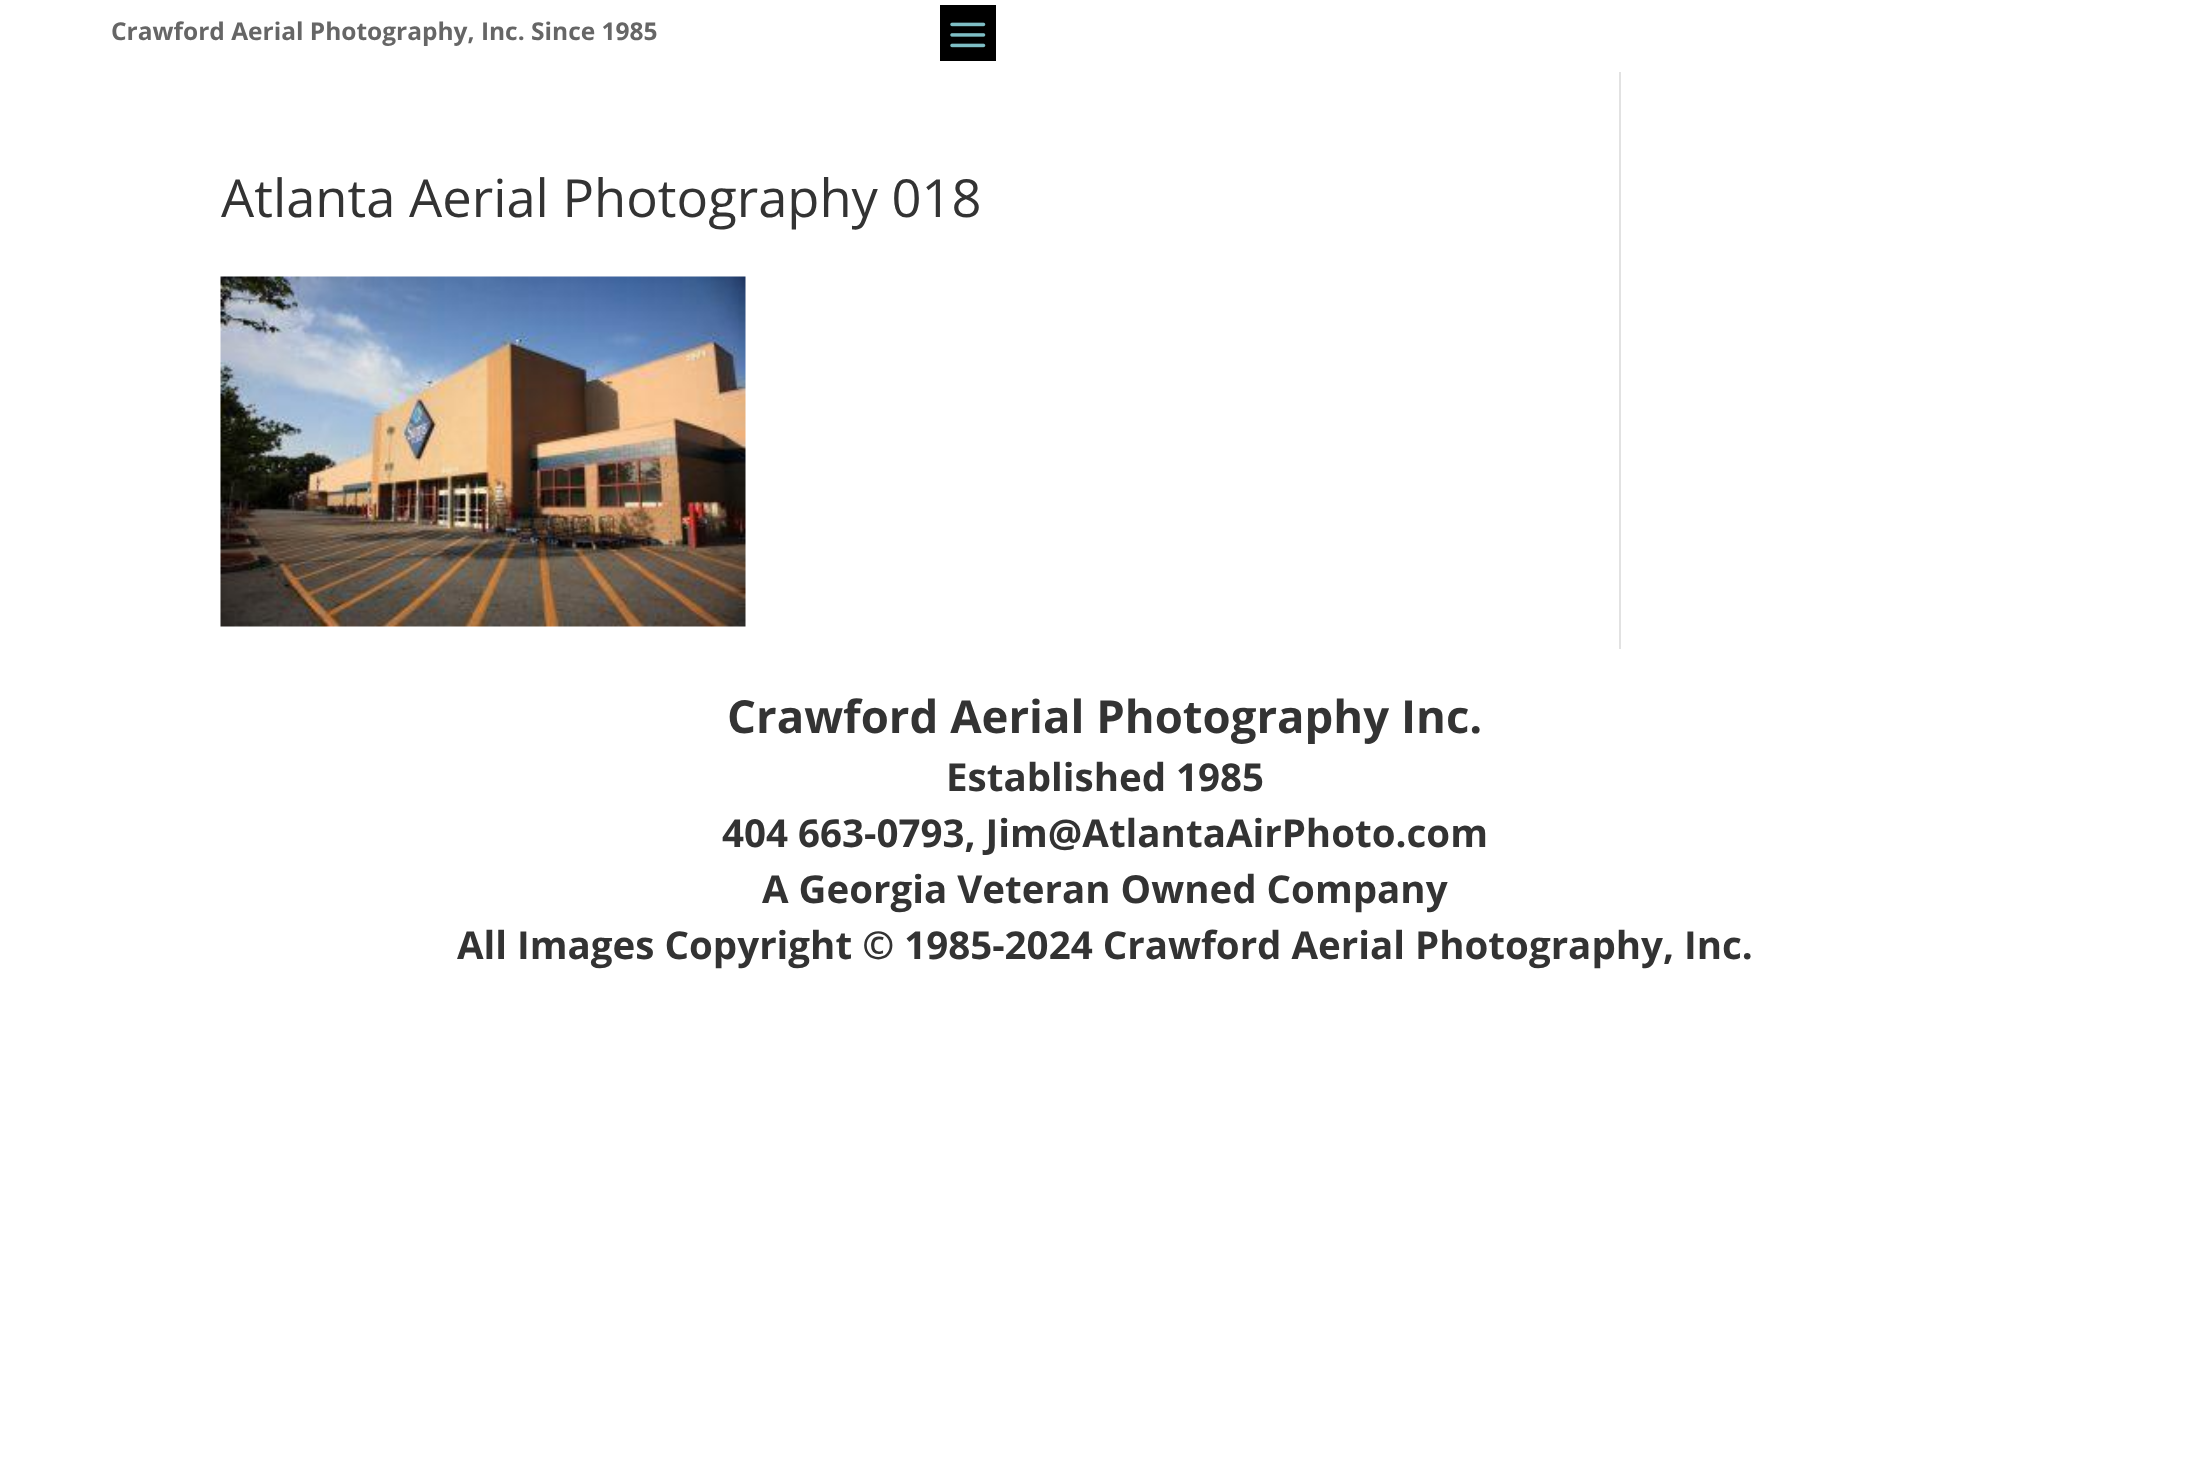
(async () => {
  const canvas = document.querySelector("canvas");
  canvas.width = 2209;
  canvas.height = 1471;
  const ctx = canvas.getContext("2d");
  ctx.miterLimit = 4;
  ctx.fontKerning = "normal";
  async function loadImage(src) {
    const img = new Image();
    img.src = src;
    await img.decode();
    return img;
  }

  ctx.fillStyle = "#ffffff";
  ctx.fillRect(0, 0, 2209, 1471);
  for (const [x, y, w, h, color] of [
    [1619, 70, 2, 579, "#e2e2e2"],
    [1619, 70, 2, 2, "#ffffff"],
    [940, 5, 56, 56, "#000000"],
  ]) {
    ctx.fillStyle = color;
    ctx.fillRect(x, y, w, h);
  }
  ctx.drawImage(await loadImage("img/1.png"), 950, 22, 36, 26);
  ctx.drawImage(await loadImage("img/2.png"), 220, 276, 526, 351);
  ctx.font = "bold 24.5px Open Sans";
  ctx.fillStyle = "#666666";
  ctx.fillText("Crawford Aerial Photography, Inc. Since 1985", 111, 40);
  ctx.font = "52.5px Open Sans";
  ctx.fillStyle = "#333333";
  ctx.fillText("Atlanta Aerial Photography 018", 221, 217);
  ctx.font = "bold 45.5px Open Sans";
  ctx.fillText("Crawford Aerial Photography Inc.", 727, 733);
  ctx.font = "bold 38.5px Open Sans";
  for (const [text, x, y] of [
    ["Established 1985", 946, 791],
    ["404 663-0793, Jim@AtlantaAirPhoto.com", 722, 847],
    ["A Georgia Veteran Owned Company", 762, 903],
    ["All Images Copyright © 1985-2024 Crawford Aerial Photography, Inc.", 457, 959],
  ]) {
    ctx.fillText(text, x, y);
  }
})();
